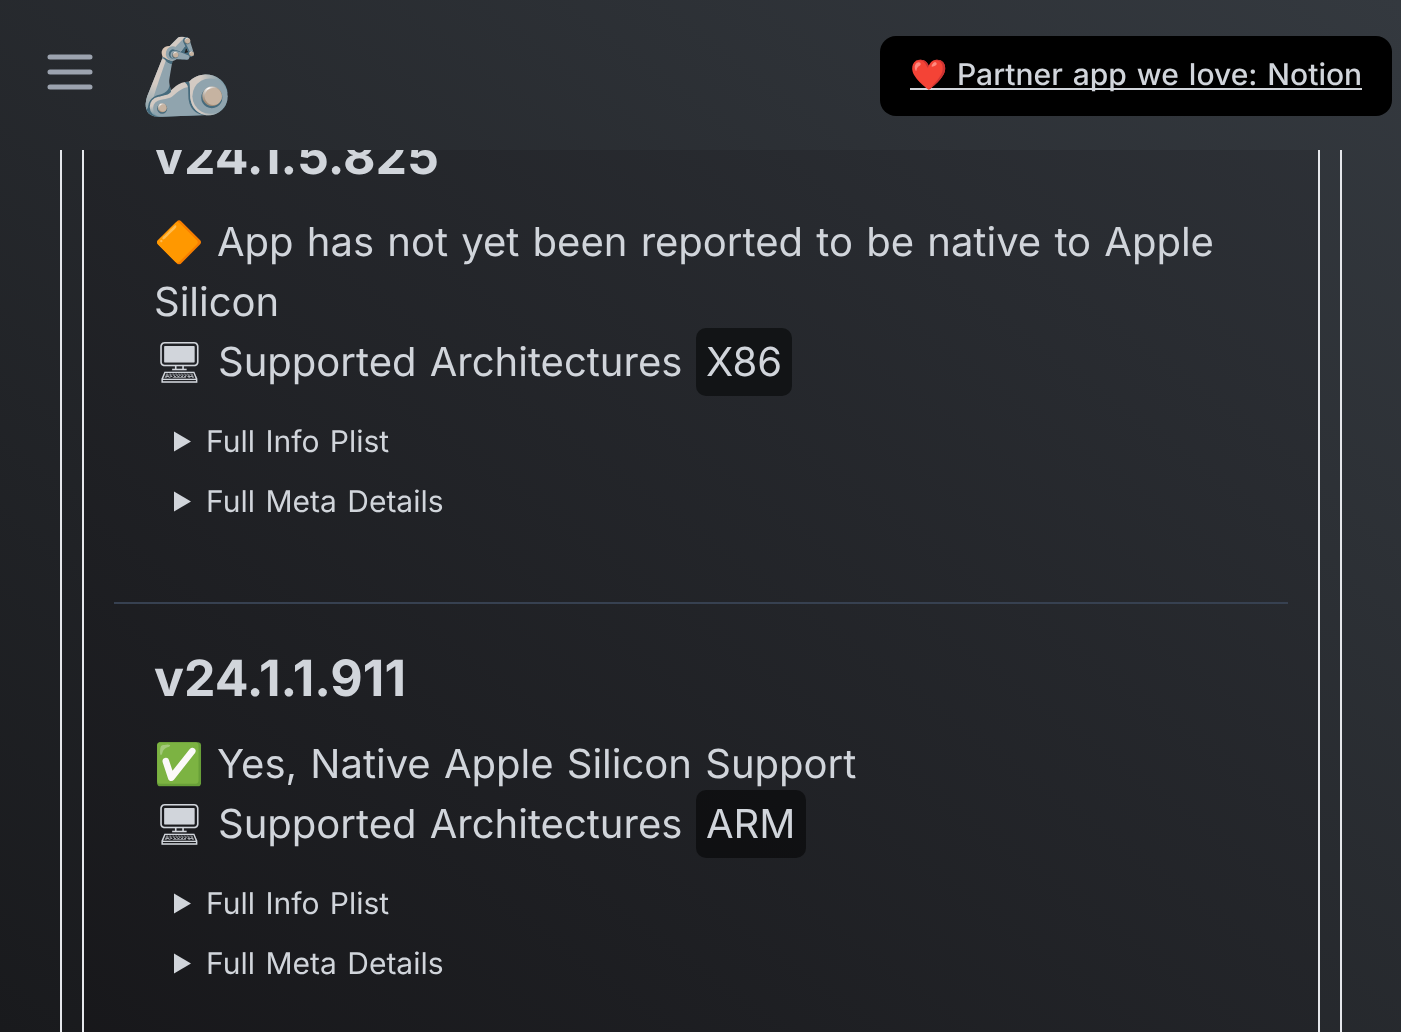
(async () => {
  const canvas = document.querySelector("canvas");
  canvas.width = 1401;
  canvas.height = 1032;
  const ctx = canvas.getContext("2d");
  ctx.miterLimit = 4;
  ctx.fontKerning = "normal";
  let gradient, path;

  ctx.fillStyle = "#ffffff";
  ctx.fillRect(0, 0, 1401, 1032);
  gradient = ctx.createLinearGradient(1194, -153, 208, 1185);
  gradient.addColorStop(0, "#34393f");
  gradient.addColorStop(1, "#191a1d");
  ctx.fillStyle = gradient;
  ctx.fillRect(0, 150, 1401, 882);
  gradient = ctx.createLinearGradient(1194, -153, 208, 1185);
  gradient.addColorStop(0, "#2f3339");
  gradient.addColorStop(1, "#17171a");
  ctx.fillStyle = gradient;
  ctx.fillRect(84, 150, 1234, 882);
  ctx.strokeStyle = "#e5e7eb";
  ctx.lineWidth = 2;
  ctx.strokeRect(61, -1, 1280, 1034);
  ctx.strokeRect(83, -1, 1236, 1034);
  ctx.fillStyle = "#121416";
  ctx.beginPath();
  ctx.roundRect(696, 328, 96, 68, 10);
  ctx.fill();
  ctx.fillStyle = "#d1d5db";
  path = new Path2D("M174 431.5L191 441.5L174 451.5Z");
  ctx.fill(path);
  path = new Path2D("M174 491.5L191 501.5L174 511.5Z");
  ctx.fill(path);
  ctx.fillStyle = "#374151";
  ctx.fillRect(114, 602, 1174, 2);
  ctx.fillStyle = "rgba(0, 0, 0, 0.5)";
  ctx.beginPath();
  ctx.roundRect(696, 790, 110, 68, 10);
  ctx.fill();
  ctx.fillStyle = "#d1d5db";
  path = new Path2D("M174 893.5L191 903.5L174 913.5Z");
  ctx.fill(path);
  path = new Path2D("M174 953.5L191 963.5L174 973.5Z");
  ctx.fill(path);
  ctx.font = "bold 50px Inter";
  ctx.fillText("v24.1.5.825", 154, 174);
  gradient = ctx.createLinearGradient(1194, -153, 208, 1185);
  gradient.addColorStop(0, "#34393f");
  gradient.addColorStop(1, "#191a1d");
  ctx.fillStyle = gradient;
  ctx.fillRect(0, 0, 1401, 150);
  ctx.fillStyle = "#000000";
  ctx.beginPath();
  ctx.roundRect(880, 36, 512, 80, 16);
  ctx.fill();
  ctx.fillStyle = "#d1d5db";
  ctx.fillRect(910, 88, 452, 2);
  ctx.wordSpacing = "2px";
  ctx.font = "500 30px Inter";
  ctx.fillText("Partner app we love: Notion", 957, 85);
  ctx.wordSpacing = "0px";
  ctx.font = "30px Noto Color Emoji";
  ctx.fillText("❤️", 910, 85);
  ctx.font = "75px Noto Color Emoji";
  ctx.fillText("🦾", 140, 102);
  path = new Path2D("M50 57H90M50 72H90M50 87H90");
  ctx.strokeStyle = "#9ca3af";
  ctx.lineWidth = 5;
  ctx.lineCap = "round";
  ctx.lineJoin = "round";
  ctx.stroke(path);
  ctx.font = "40px Noto Color Emoji";
  ctx.fillText("🔶", 154, 256);
  ctx.wordSpacing = "2px";
  ctx.font = "40px Inter";
  ctx.fillText("App has not yet been reported to be native to Apple", 217, 256);
  ctx.wordSpacing = "0px";
  ctx.fillText("Silicon", 154, 316);
  ctx.font = "40px Noto Emoji";
  ctx.fillText("🖥", 154, 376);
  ctx.wordSpacing = "2px";
  ctx.font = "40px Inter";
  ctx.fillText("Supported Architectures", 218, 376);
  ctx.wordSpacing = "0px";
  ctx.fillText("X86", 706, 376);
  ctx.wordSpacing = "2px";
  ctx.font = "30px Inter";
  ctx.fillText("Full Info Plist", 206, 452);
  ctx.fillText("Full Meta Details", 206, 512);
  ctx.wordSpacing = "0px";
  ctx.font = "bold 50px Inter";
  ctx.fillText("v24.1.1.911", 154, 696);
  ctx.font = "40px Noto Color Emoji";
  ctx.fillText("✅", 154, 778);
  ctx.wordSpacing = "2px";
  ctx.font = "40px Inter";
  ctx.fillText("Yes, Native Apple Silicon Support", 217, 778);
  ctx.wordSpacing = "0px";
  ctx.font = "40px Noto Emoji";
  ctx.fillText("🖥", 154, 838);
  ctx.wordSpacing = "2px";
  ctx.font = "40px Inter";
  ctx.fillText("Supported Architectures", 218, 838);
  ctx.wordSpacing = "0px";
  ctx.fillText("ARM", 706, 838);
  ctx.wordSpacing = "2px";
  ctx.font = "30px Inter";
  ctx.fillText("Full Info Plist", 206, 914);
  ctx.fillText("Full Meta Details", 206, 974);
})();
